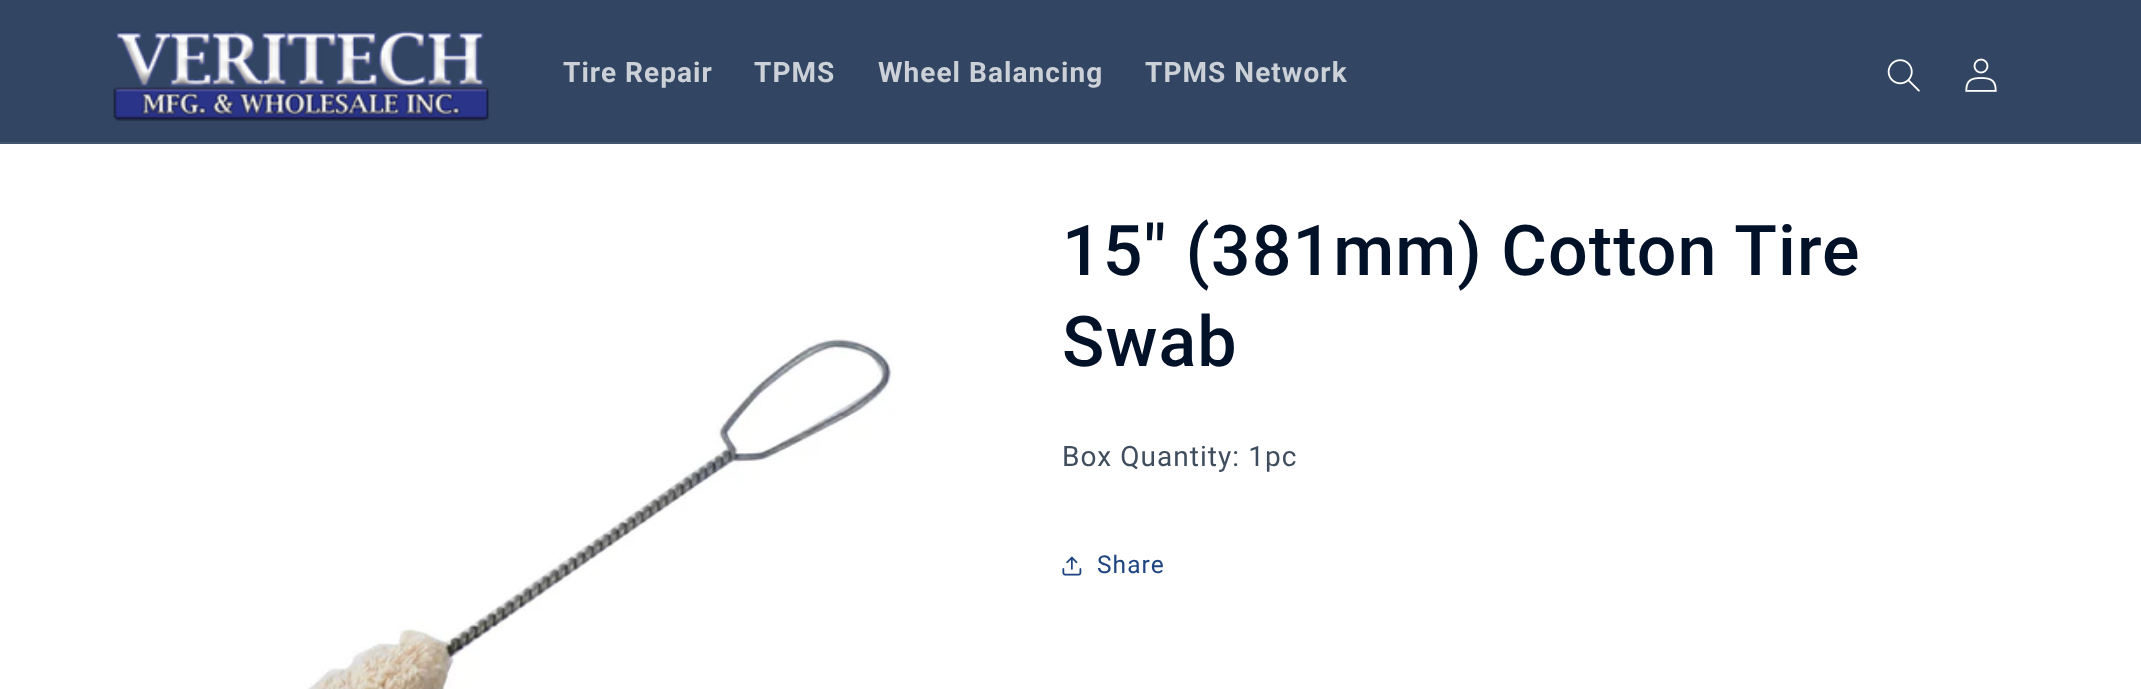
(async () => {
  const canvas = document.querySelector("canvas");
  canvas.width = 2141;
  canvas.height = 689;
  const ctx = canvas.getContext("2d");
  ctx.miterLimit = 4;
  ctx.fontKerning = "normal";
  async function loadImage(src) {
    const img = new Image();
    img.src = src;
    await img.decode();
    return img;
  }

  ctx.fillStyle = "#ffffff";
  ctx.fillRect(0, 0, 2141, 689);
  ctx.fillStyle = "#324663";
  ctx.fillRect(0, 0, 2141, 142);
  ctx.fillStyle = "#42556f";
  ctx.fillRect(0, 142, 2141, 2);
  ctx.drawImage(await loadImage("img/1.png"), 113, 31, 376, 90);
  ctx.drawImage(await loadImage("img/2.png"), 1887, 59, 33, 33);
  ctx.drawImage(await loadImage("img/3.png"), 1965, 58, 32, 34);
  ctx.drawImage(await loadImage("img/4.png"), 307, 339, 587, 350);
  ctx.drawImage(await loadImage("img/5.png"), 1062, 556, 20, 20);
  ctx.letterSpacing = "1.05px";
  ctx.font = "bold 28px Roboto";
  ctx.fillStyle = "#ccd1d8";
  for (const [text, x, y] of [
    ["Tire Repair", 563, 82],
    ["TPMS", 754, 82],
    ["Wheel Balancing", 878, 82],
    ["TPMS Network", 1145, 82],
  ]) {
    ctx.fillText(text, x, y);
  }
  ctx.font = "500 70px Roboto";
  ctx.fillStyle = "#001128";
  ctx.fillText("15\" (381mm) Cotton Tire", 1062, 275);
  ctx.fillText("Swab", 1062, 366);
  ctx.font = "28px Roboto";
  ctx.fillStyle = "#404d5e";
  ctx.fillText("Box Quantity: 1pc", 1062, 466);
  ctx.font = "24.5px Roboto";
  ctx.fillStyle = "#1e4581";
  ctx.fillText("Share", 1097, 573);
})();
